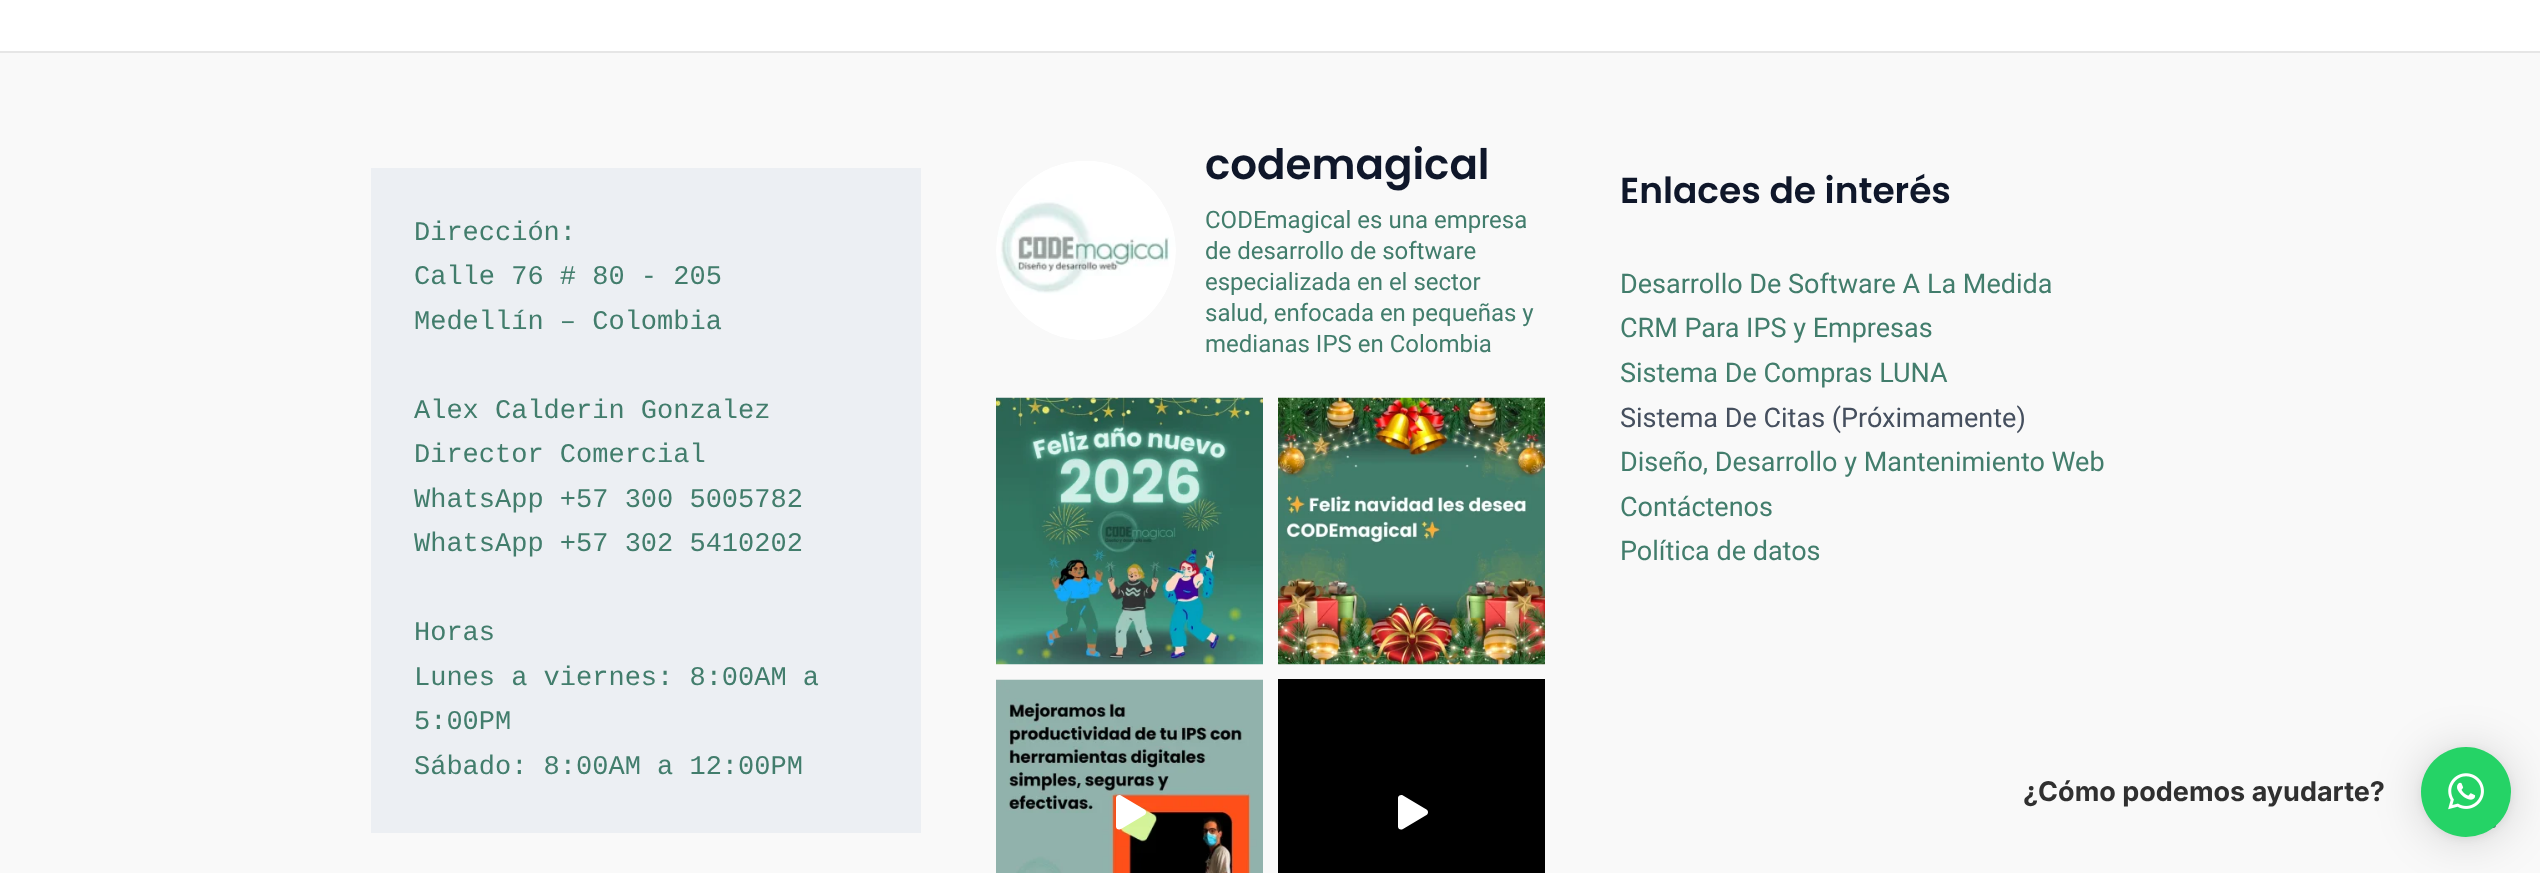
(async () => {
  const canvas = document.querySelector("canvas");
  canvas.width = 2540;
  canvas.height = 873;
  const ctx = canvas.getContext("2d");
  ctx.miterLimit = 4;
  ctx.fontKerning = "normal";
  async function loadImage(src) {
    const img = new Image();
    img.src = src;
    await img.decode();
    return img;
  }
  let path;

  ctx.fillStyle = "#ffffff";
  ctx.fillRect(0, 0, 2540, 873);
  for (const [x, y, w, h, color] of [
    [0, 53, 2540, 820, "#f9f9f9"],
    [0, 51, 2540, 2, "#e6e6e6"],
    [371, 168, 550, 665, "#eceff3"],
  ]) {
    ctx.fillStyle = color;
    ctx.fillRect(x, y, w, h);
  }
  ctx.drawImage(await loadImage("img/1.png"), 996, 161, 180, 179);
  ctx.drawImage(await loadImage("img/2.png"), 996, 397, 267, 268);
  ctx.drawImage(await loadImage("img/3.png"), 1278, 397, 267, 268);
  ctx.drawImage(await loadImage("img/4.png"), 996, 679, 267, 194);
  ctx.fillStyle = "#ffffff";
  path = new Path2D("M1144.5 809.5L1121 795.5C1119 794.5 1116 795.5 1116 798V826.5C1116 829 1118.5 830.5 1121 829L1144.5 815C1146.5 814 1146.5 810.5 1144.5 809.5Z");
  ctx.fill(path);
  ctx.fillStyle = "#000000";
  ctx.fillRect(1278, 679, 267, 194);
  ctx.fillStyle = "#ffffff";
  path = new Path2D("M1426.5 809.5L1403 795.5C1401 794.5 1398 795.5 1398 798V826.5C1398 829 1400.5 830.5 1403 829L1426.5 815C1428.5 814 1428.5 810.5 1426.5 809.5Z");
  ctx.fill(path);
  ctx.fillStyle = "#427d6c";
  ctx.beginPath();
  ctx.roundRect(2450, 782, 46, 46, 3);
  ctx.fill();
  ctx.fillStyle = "rgba(0, 0, 0, 0.16)";
  ctx.filter = "blur(24px)";
  ctx.beginPath();
  ctx.roundRect(2421, 750, 90, 90, 45);
  ctx.fill();
  ctx.filter = "none";
  ctx.fillStyle = "rgba(0, 0, 0, 0.06)";
  ctx.filter = "blur(4.5px)";
  ctx.beginPath();
  ctx.roundRect(2421, 749, 90, 90, 45);
  ctx.fill();
  ctx.filter = "none";
  ctx.fillStyle = "#25d366";
  ctx.beginPath();
  ctx.arc(2466, 792, 45, 0, Math.PI * 2);
  ctx.fill();
  ctx.drawImage(await loadImage("img/5.png"), 2448, 773, 36, 37);
  ctx.font = "27px Liberation Mono";
  ctx.fillStyle = "#427d6c";
  for (const [text, x, y] of [
    ["Dirección:", 414, 240],
    ["Calle 76 # 80 - 205", 414, 284],
    ["Medellín – Colombia", 414, 329],
    ["Alex Calderin Gonzalez", 414, 418],
    ["Director Comercial", 414, 462],
    ["WhatsApp +57 300 5005782", 414, 507],
    ["WhatsApp +57 302 5410202", 414, 551],
    ["Horas", 414, 640],
    ["Lunes a viernes: 8:00AM a", 414, 685],
    ["5:00PM", 414, 729],
    ["Sábado: 8:00AM a 12:00PM", 414, 774],
  ]) {
    ctx.fillText(text, x, y);
  }
  ctx.font = "600 42px Poppins";
  ctx.fillStyle = "#0f172a";
  ctx.fillText("codemagical", 1205, 179);
  ctx.font = "24px Roboto";
  ctx.fillStyle = "#427d6c";
  for (const [text, x, y] of [
    ["CODEmagical es una empresa", 1205, 228],
    ["de desarrollo de software", 1205, 259],
    ["especializada en el sector", 1205, 290],
    ["salud, enfocada en pequeñas y", 1205, 321],
    ["medianas IPS en Colombia", 1205, 352],
  ]) {
    ctx.fillText(text, x, y);
  }
  ctx.font = "600 36px Poppins";
  ctx.fillStyle = "#0f172a";
  ctx.fillText("Enlaces de interés", 1620, 203);
  ctx.font = "27px Roboto";
  ctx.fillStyle = "#427d6c";
  for (const [text, x, y] of [
    ["Desarrollo De Software A La Medida", 1620, 293],
    ["CRM Para IPS y Empresas", 1620, 337],
    ["Sistema De Compras LUNA", 1620, 382],
  ]) {
    ctx.fillText(text, x, y);
  }
  ctx.fillStyle = "#454f5e";
  ctx.fillText("Sistema De Citas (Próximamente)", 1620, 427);
  ctx.fillStyle = "#427d6c";
  for (const [text, x, y] of [
    ["Diseño, Desarrollo y Mantenimiento Web", 1620, 471],
    ["Contáctenos", 1620, 516],
    ["Política de datos", 1620, 560],
  ]) {
    ctx.fillText(text, x, y);
  }
  ctx.font = "bold 27px Inter";
  ctx.fillStyle = "#303030";
  ctx.fillText("¿Cómo podemos ayudarte?", 2023, 801);
})();
